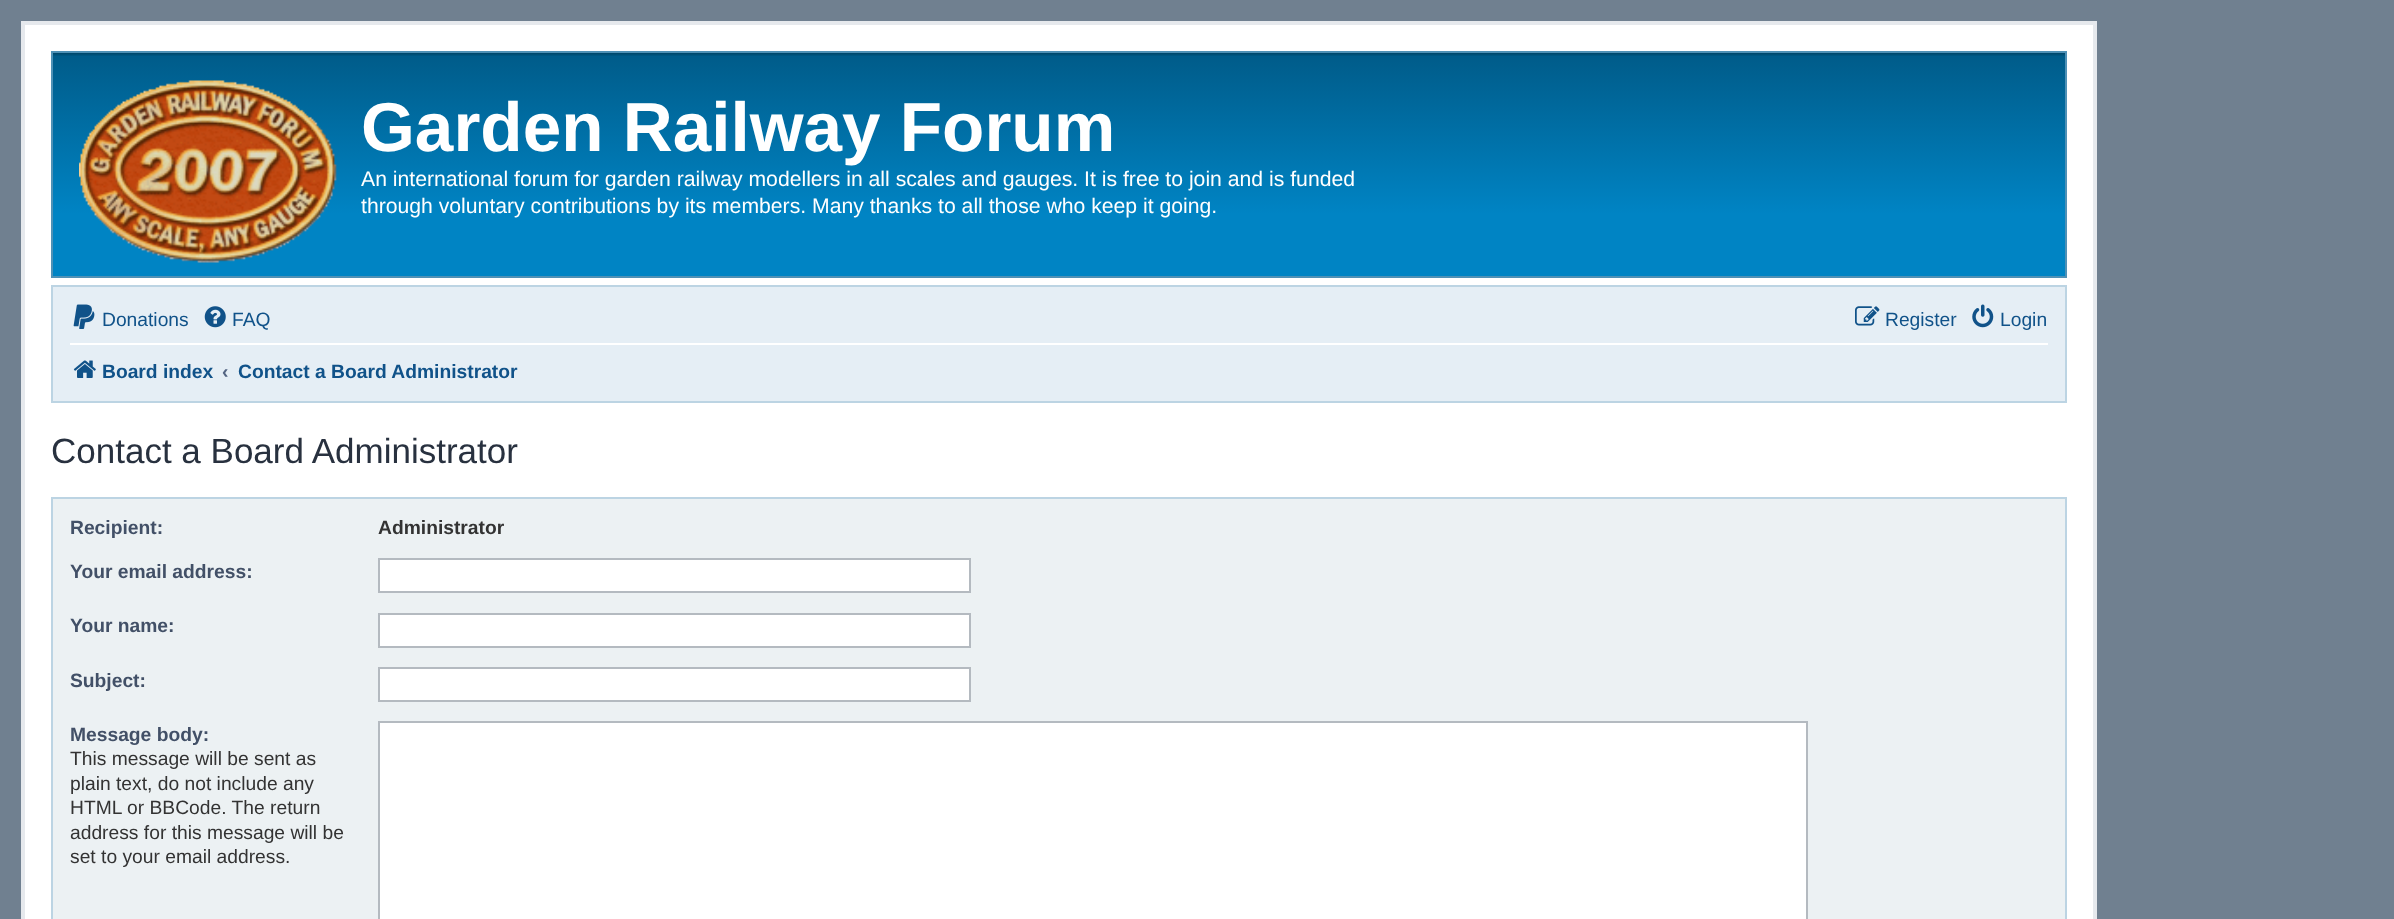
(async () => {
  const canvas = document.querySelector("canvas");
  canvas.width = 2394;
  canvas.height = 919;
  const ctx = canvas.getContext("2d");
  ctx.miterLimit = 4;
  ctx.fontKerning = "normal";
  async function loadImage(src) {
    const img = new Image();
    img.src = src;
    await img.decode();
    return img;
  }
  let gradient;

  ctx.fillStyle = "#708090";
  ctx.fillRect(0, 0, 2394, 919);
  ctx.fillStyle = "#ffffff";
  ctx.beginPath();
  ctx.rect(23, 23, 2072, 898);
  ctx.fill();
  ctx.strokeStyle = "#e6e9ed";
  ctx.lineWidth = 4;
  ctx.stroke();
  gradient = ctx.createLinearGradient(1059, 52, 1059, 277);
  gradient.addColorStop(0, "#003f5e");
  gradient.addColorStop(0.02, "#005c8a");
  gradient.addColorStop(0.72, "#0084c4");
  gradient.addColorStop(1, "#0084c4");
  ctx.fillStyle = gradient;
  ctx.fillRect(53, 53, 2012, 223);
  ctx.strokeStyle = "#4f91b6";
  ctx.lineWidth = 2;
  ctx.strokeRect(52, 52, 2014, 225);
  ctx.drawImage(await loadImage("img/1.png"), 79, 80, 258, 183);
  ctx.fillStyle = "#e5eef5";
  ctx.beginPath();
  ctx.rect(52, 286, 2014, 116);
  ctx.fill();
  ctx.strokeStyle = "#bcd4e3";
  ctx.stroke();
  ctx.drawImage(await loadImage("img/2.png"), 73, 304, 22, 25);
  ctx.drawImage(await loadImage("img/3.png"), 204, 306, 22, 22);
  ctx.drawImage(await loadImage("img/4.png"), 1855, 306, 25, 20);
  ctx.drawImage(await loadImage("img/5.png"), 1972, 304, 22, 24);
  ctx.fillStyle = "#ffffff";
  ctx.fillRect(70, 343, 1978, 2);
  ctx.drawImage(await loadImage("img/6.png"), 73, 360, 23, 18);
  ctx.fillStyle = "#ecf1f3";
  ctx.beginPath();
  ctx.rect(52, 498, 2014, 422);
  ctx.fill();
  ctx.stroke();
  ctx.fillStyle = "#ffffff";
  ctx.beginPath();
  ctx.rect(379, 559, 591, 33);
  ctx.fill();
  ctx.strokeStyle = "#b4bac0";
  ctx.stroke();
  ctx.beginPath();
  ctx.rect(379, 614, 591, 33);
  ctx.fill();
  ctx.stroke();
  ctx.beginPath();
  ctx.rect(379, 668, 591, 33);
  ctx.fill();
  ctx.stroke();
  ctx.beginPath();
  ctx.rect(379, 722, 1428, 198);
  ctx.fill();
  ctx.stroke();
  ctx.font = "bold 69.25px Liberation Sans";
  ctx.fillText("Garden Railway Forum", 361, 151);
  ctx.font = "21.2px Liberation Sans";
  ctx.fillText("An international forum for garden railway modellers in all scales and gauges. It is free to join and is funded", 361, 186);
  ctx.fillText("through voluntary contributions by its members. Many thanks to all those who keep it going.", 361, 213);
  ctx.font = "19.25px Liberation Sans";
  ctx.fillStyle = "#105289";
  for (const [text, x, y] of [
    ["Donations", 102, 326],
    ["FAQ", 232, 326],
    ["Register", 1885, 326],
    ["Login", 2000, 326],
  ]) {
    ctx.fillText(text, x, y);
  }
  ctx.font = "bold 19.25px Liberation Sans";
  ctx.fillText("Board index", 102, 378);
  ctx.fillStyle = "#536482";
  ctx.fillText("‹", 222, 378);
  ctx.fillStyle = "#105289";
  ctx.fillText("Contact a Board Administrator", 238, 378);
  ctx.font = "35px Liberation Sans";
  ctx.fillStyle = "#28313f";
  ctx.fillText("Contact a Board Administrator", 51, 463);
  ctx.font = "bold 19.25px Liberation Sans";
  ctx.fillStyle = "#425067";
  ctx.fillText("Recipient:", 70, 534);
  ctx.fillStyle = "#333333";
  ctx.fillText("Administrator", 378, 534);
  ctx.fillStyle = "#425067";
  for (const [text, x, y] of [
    ["Your email address:", 70, 578],
    ["Your name:", 70, 632],
    ["Subject:", 70, 687],
    ["Message body:", 70, 741],
  ]) {
    ctx.fillText(text, x, y);
  }
  ctx.font = "19.25px Liberation Sans";
  ctx.fillStyle = "#333333";
  for (const [text, x, y] of [
    ["This message will be sent as", 70, 765],
    ["plain text, do not include any", 70, 790],
    ["HTML or BBCode. The return", 70, 814],
    ["address for this message will be", 70, 839],
    ["set to your email address.", 70, 863],
  ]) {
    ctx.fillText(text, x, y);
  }
})();
